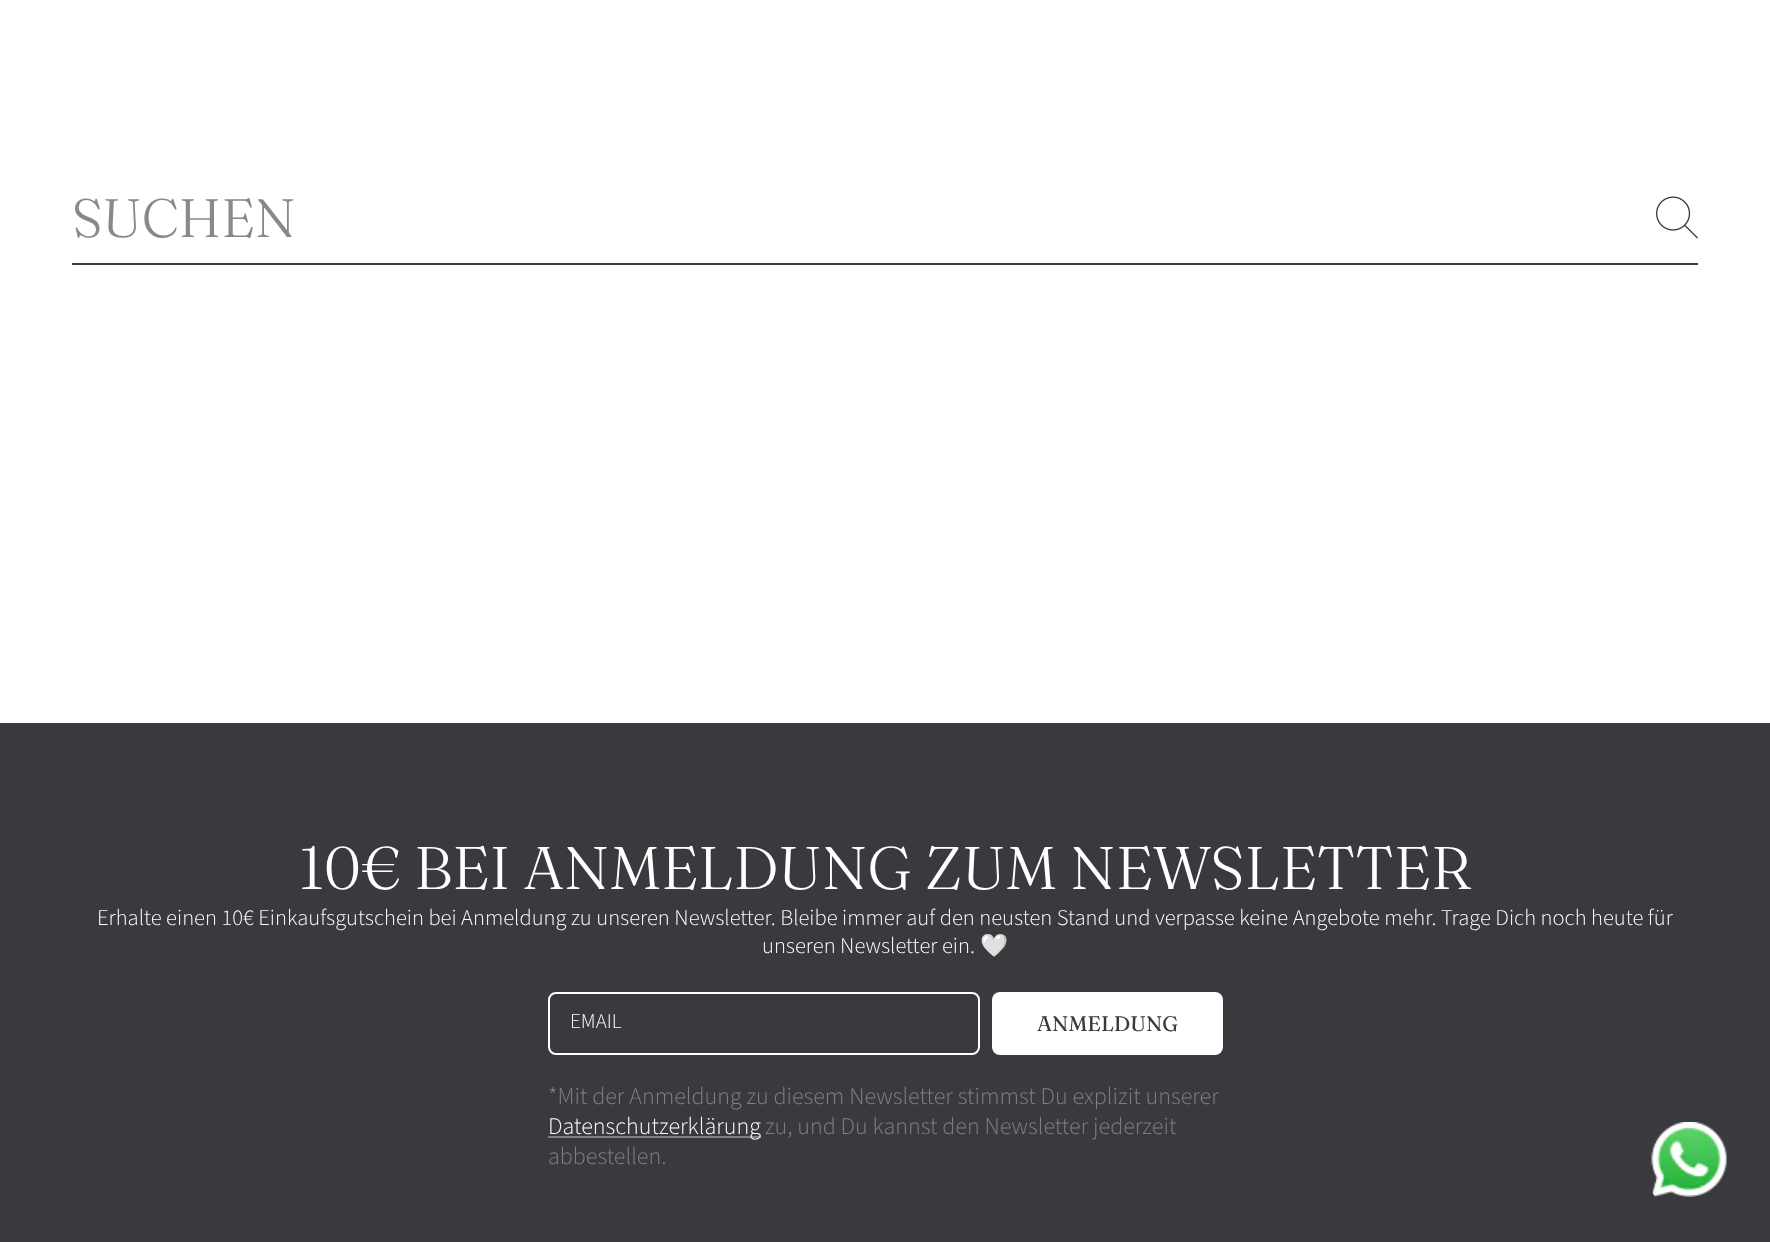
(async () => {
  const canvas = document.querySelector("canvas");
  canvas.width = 1770;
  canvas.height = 1242;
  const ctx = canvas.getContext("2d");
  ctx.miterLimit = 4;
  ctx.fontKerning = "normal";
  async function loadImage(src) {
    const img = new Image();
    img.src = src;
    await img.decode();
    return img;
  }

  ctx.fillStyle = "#ffffff";
  ctx.fillRect(0, 0, 1770, 1242);
  ctx.fillStyle = "#3a3a3e";
  ctx.fillRect(72, 263, 1626, 2);
  ctx.drawImage(await loadImage("img/1.png"), 1656, 196, 42, 43);
  ctx.fillRect(0, 723, 1770, 519);
  ctx.beginPath();
  ctx.roundRect(549, 993, 430, 61, 7);
  ctx.strokeStyle = "#ffffff";
  ctx.lineWidth = 2;
  ctx.stroke();
  ctx.fillStyle = "#ffffff";
  ctx.beginPath();
  ctx.roundRect(992, 992, 231, 63, 8);
  ctx.fill();
  ctx.fillStyle = "#808080";
  ctx.fillRect(548, 1136, 213, 2);
  ctx.drawImage(await loadImage("img/2.png"), 1651, 1122, 76, 75);
  ctx.font = "300 54px 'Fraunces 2'";
  ctx.fillStyle = "#89898b";
  ctx.fillText("SUCHEN", 72, 237);
  ctx.font = "300 60px Fraunces";
  ctx.fillStyle = "#ffffff";
  ctx.fillText("10€ BEI ANMELDUNG ZUM NEWSLETTER", 299, 889);
  ctx.font = "300 22.5px Source Sans Pro";
  ctx.fillText("Erhalte einen 10€ Einkaufsgutschein bei Anmeldung zu unseren Newsletter. Bleibe immer auf den neusten Stand und verpasse keine Angebote mehr. Trage Dich noch heute für", 97, 925);
  ctx.fillText("unseren Newsletter ein.", 762, 953);
  ctx.font = "22.5px Noto Color Emoji";
  ctx.fillText("🤍", 980, 953);
  ctx.font = "300 21px Source Sans Pro";
  ctx.fillText("EMAIL", 570, 1028);
  ctx.font = "21px Fraunces";
  ctx.fillStyle = "#3a3a3e";
  ctx.fillText("ANMELDUNG", 1037, 1031);
  ctx.font = "300 24px Source Sans Pro";
  ctx.fillStyle = "#808080";
  ctx.fillText("*Mit der Anmeldung zu diesem Newsletter stimmst Du explizit unserer", 548, 1104);
  ctx.fillStyle = "#ffffff";
  ctx.fillText("Datenschutzerklärung", 548, 1134);
  ctx.fillStyle = "#808080";
  ctx.fillText("zu, und Du kannst den Newsletter jederzeit", 765, 1134);
  ctx.fillText("abbestellen.", 548, 1164);
})();
